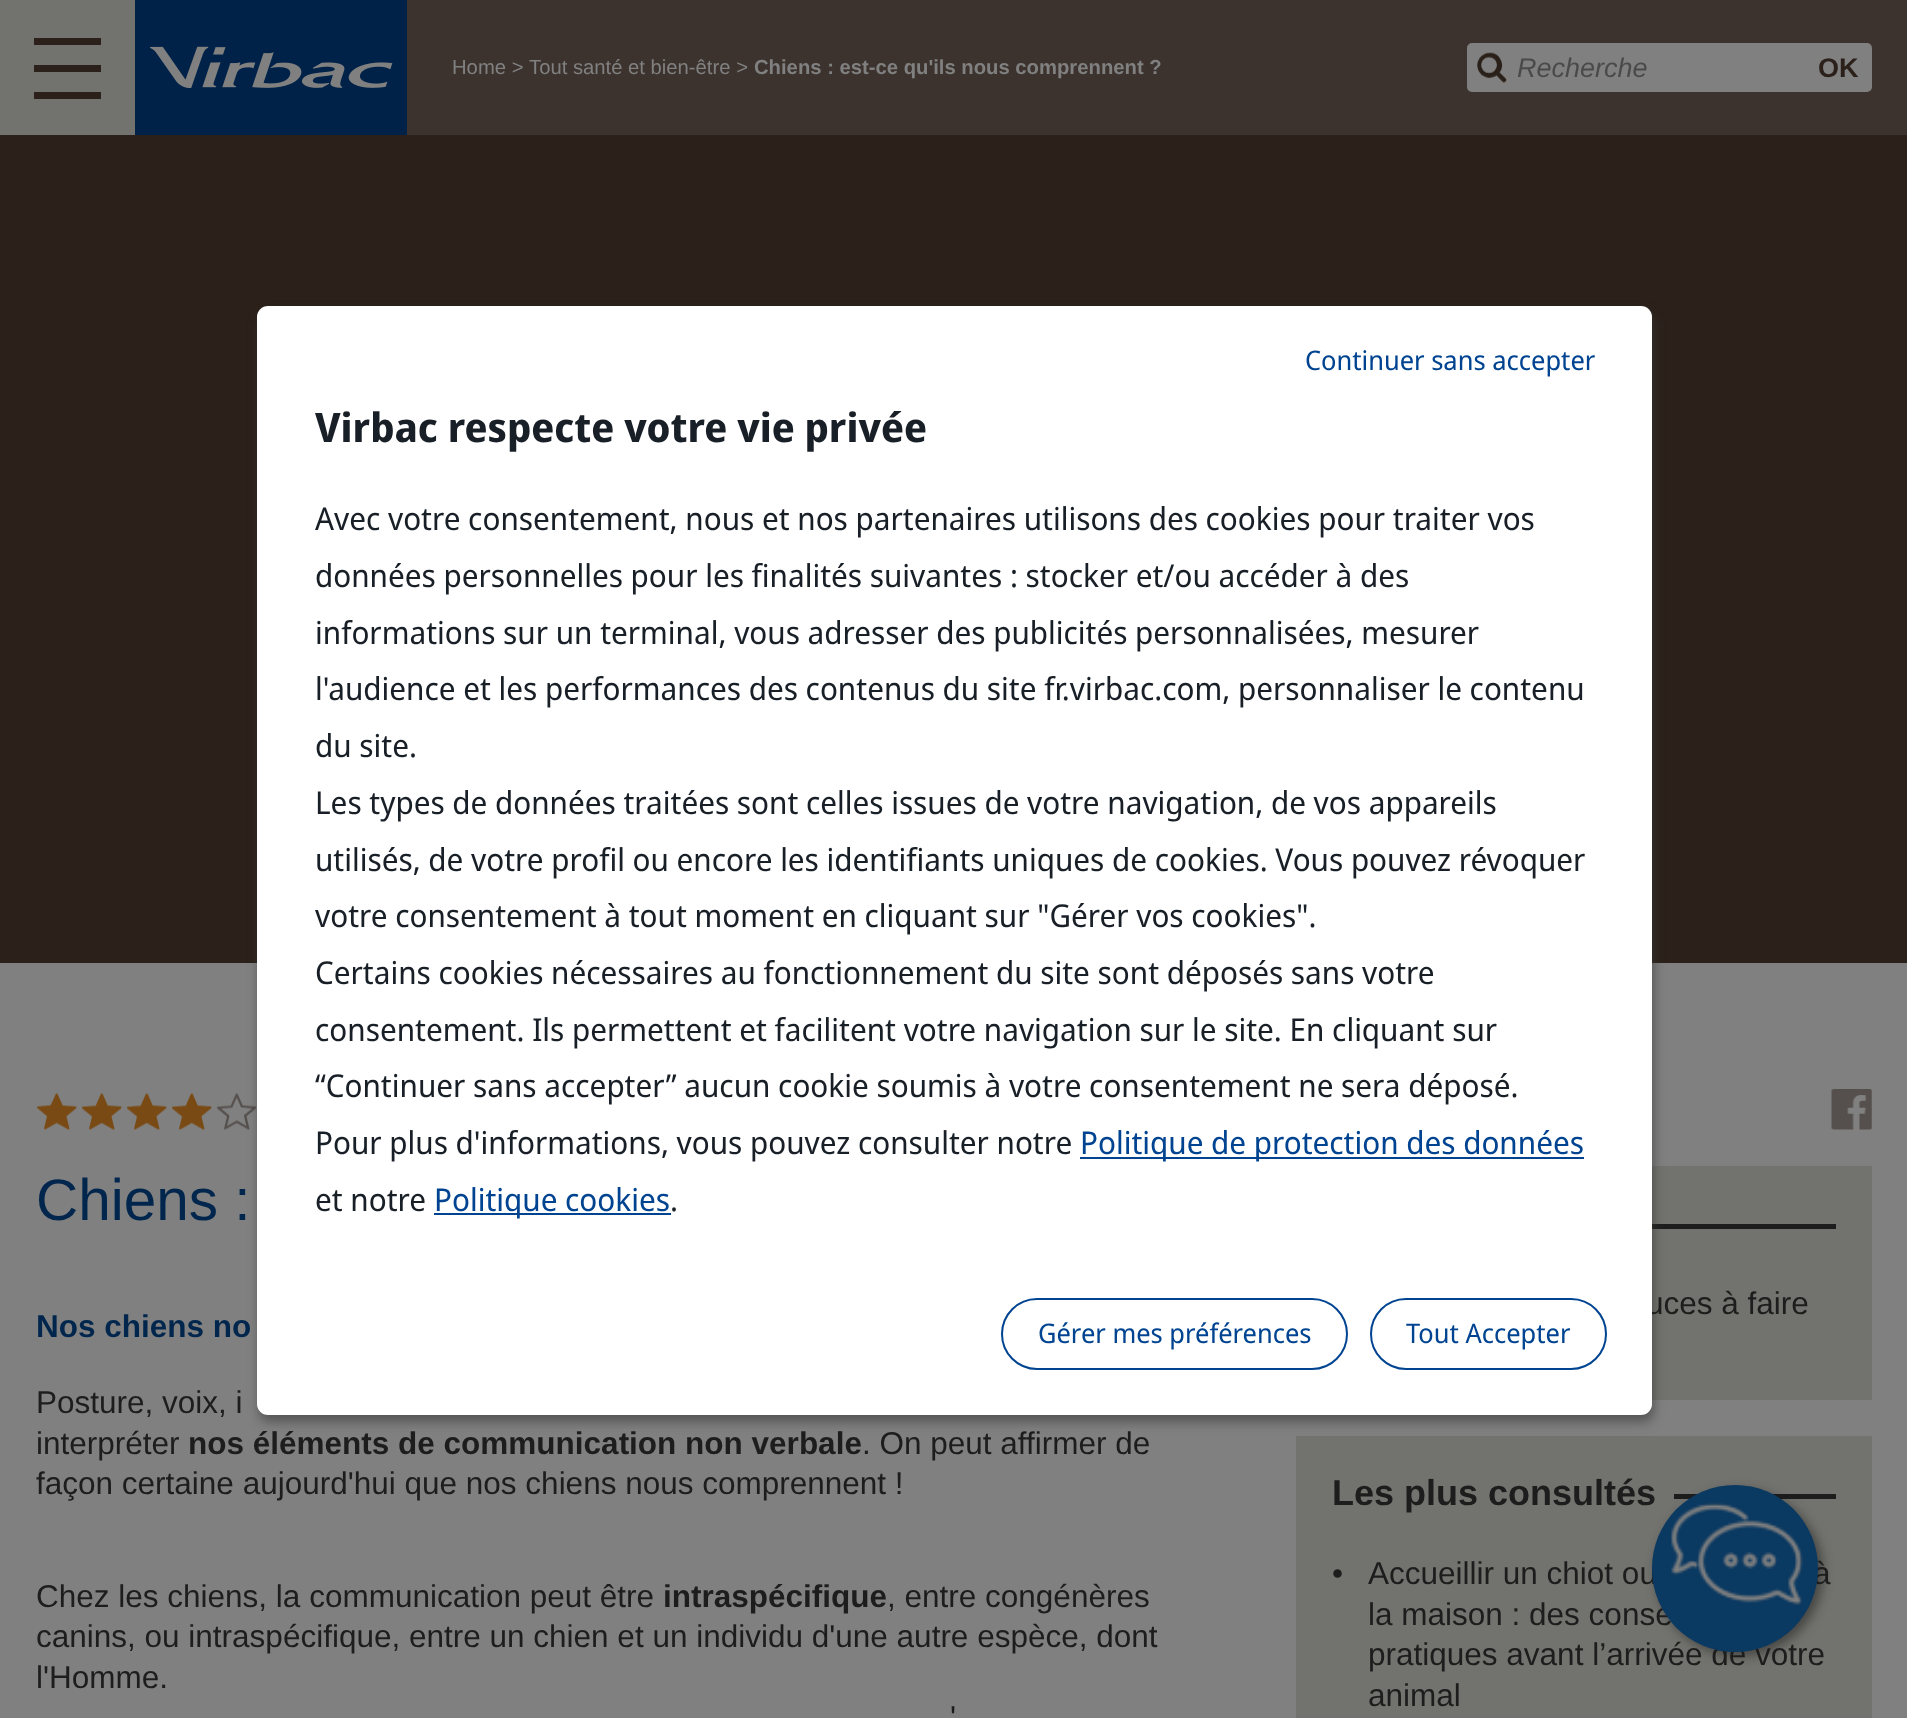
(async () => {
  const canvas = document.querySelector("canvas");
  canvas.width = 1907;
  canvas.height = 1718;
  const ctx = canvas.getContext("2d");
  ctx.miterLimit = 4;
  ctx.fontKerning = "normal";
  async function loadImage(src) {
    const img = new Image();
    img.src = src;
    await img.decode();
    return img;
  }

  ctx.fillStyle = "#808080";
  ctx.fillRect(0, 0, 1907, 1718);
  for (const [x, y, w, h, color] of [
    [0, 0, 135, 135, "#72726e"],
    [34, 65, 67, 7, "#2b201a"],
    [34, 38, 67, 7, "#2b201a"],
    [34, 92, 67, 7, "#2b201a"],
  ]) {
    ctx.fillStyle = color;
    ctx.fillRect(x, y, w, h);
  }
  ctx.drawImage(await loadImage("img/1.png"), 135, 0, 272, 135);
  ctx.fillStyle = "#3c332f";
  ctx.fillRect(407, 0, 1500, 135);
  ctx.fillStyle = "#808080";
  ctx.beginPath();
  ctx.roundRect(1467, 43, 405, 49, 5);
  ctx.fill();
  ctx.drawImage(await loadImage("img/2.png"), 1477, 52, 30, 31);
  ctx.fillStyle = "#2b201a";
  ctx.fillRect(0, 135, 1907, 828);
  ctx.drawImage(await loadImage("img/3.png"), 37, 1093, 220, 37);
  ctx.drawImage(await loadImage("img/4.png"), 1831, 1089, 41, 41);
  for (const [x, y, w, h, color] of [
    [1652, 1166, 220, 234, "#72726e"],
    [1652, 1224, 184, 5, "#1d1d1d"],
    [1296, 1436, 576, 282, "#72726e"],
    [1674, 1494, 162, 5, "#1d1d1d"],
  ]) {
    ctx.fillStyle = color;
    ctx.fillRect(x, y, w, h);
  }
  ctx.fillStyle = "rgba(23, 23, 23, 0.5)";
  ctx.filter = "blur(5.5px)";
  ctx.beginPath();
  ctx.roundRect(1656, 1490, 167, 166, 83);
  ctx.fill();
  ctx.filter = "none";
  ctx.fillStyle = "rgba(56, 56, 56, 0.6)";
  ctx.filter = "blur(5.5px)";
  ctx.beginPath();
  ctx.roundRect(259, 313, 1395, 1109, 11);
  ctx.fill();
  ctx.filter = "none";
  ctx.font = "20.25px Liberation Sans";
  ctx.fillStyle = "#808080";
  ctx.fillText("Home >", 452, 74);
  ctx.fillText("Tout santé et bien-être >", 529, 74);
  ctx.font = "bold 20.25px Liberation Sans";
  ctx.fillText("Chiens : est-ce qu'ils nous comprennent ?", 754, 74);
  ctx.font = "italic 27px Liberation Sans";
  ctx.fillStyle = "#4a4a4a";
  ctx.fillText("Recherche", 1517, 77);
  ctx.font = "bold 27px Liberation Sans";
  ctx.fillStyle = "#2b201a";
  ctx.fillText("OK", 1818, 77);
  ctx.font = "58.5px Liberation Sans";
  ctx.fillStyle = "#00264d";
  ctx.fillText("Chiens :", 36, 1220);
  ctx.font = "bold 31.5px Liberation Sans";
  ctx.fillText("Nos chiens no", 36, 1337);
  ctx.font = "31.5px Liberation Sans";
  ctx.fillStyle = "#1d1d1d";
  ctx.fillText("Posture, voix, i", 36, 1413);
  ctx.fillText("interpréter", 36, 1454);
  ctx.font = "bold 31.5px Liberation Sans";
  ctx.fillText("nos éléments de communication non verbale", 188, 1454);
  ctx.font = "31.5px Liberation Sans";
  for (const [text, x, y] of [
    [". On peut affirmer de", 862, 1454],
    ["façon certaine aujourd'hui que nos chiens nous comprennent !", 36, 1494],
    ["Chez les chiens, la communication peut être", 36, 1607],
  ]) {
    ctx.fillText(text, x, y);
  }
  ctx.font = "bold 31.5px Liberation Sans";
  ctx.fillText("intraspécifique", 663, 1607);
  ctx.font = "31.5px Liberation Sans";
  for (const [text, x, y] of [
    [", entre congénères", 887, 1607],
    ["canins, ou intraspécifique, entre un chien et un individu d'une autre espèce, dont", 36, 1647],
    ["l'Homme.", 36, 1688],
    ["'", 950, 1728],
    ["uces à faire", 1646, 1314],
  ]) {
    ctx.fillText(text, x, y);
  }
  ctx.font = "bold 36px Liberation Sans";
  ctx.fillText("Les plus consultés", 1332, 1505);
  ctx.font = "31.5px Liberation Sans";
  for (const [text, x, y] of [
    ["•", 1332, 1584],
    ["Accueillir un chiot ou", 1368, 1584],
    ["à", 1813, 1584],
    ["la maison : des conse", 1368, 1625],
    ["pratiques avant l’arrivée de votre", 1368, 1665],
    ["animal", 1368, 1706],
  ]) {
    ctx.fillText(text, x, y);
  }
  ctx.fillStyle = "#0a3962";
  ctx.beginPath();
  ctx.roundRect(1652, 1485, 166, 167, 83);
  ctx.fill();
  ctx.drawImage(await loadImage("img/5.png"), 1670, 1502, 133, 103);
  ctx.fillStyle = "#ffffff";
  ctx.beginPath();
  ctx.roundRect(257, 306, 1395, 1109, 11);
  ctx.fill();
  ctx.font = "27px Noto Sans Display";
  ctx.fillStyle = "#004491";
  ctx.fillText("Continuer sans accepter", 1305, 370);
  ctx.beginPath();
  ctx.roundRect(1002, 1299, 345, 70, 35);
  ctx.strokeStyle = "#004491";
  ctx.lineWidth = 2;
  ctx.stroke();
  ctx.fillText("Gérer mes préférences", 1038, 1343);
  ctx.beginPath();
  ctx.roundRect(1371, 1299, 235, 70, 35);
  ctx.stroke();
  ctx.fillText("Tout Accepter", 1406, 1343);
  ctx.font = "bold 40.5px Noto Sans Display";
  ctx.fillStyle = "#191f27";
  ctx.fillText("Virbac respecte votre vie privée", 315, 442);
  ctx.font = "31.5px Noto Sans Display";
  for (const [text, x, y] of [
    ["Avec votre consentement, nous et nos partenaires utilisons des cookies pour traiter vos", 315, 530],
    ["données personnelles pour les finalités suivantes : stocker et/ou accéder à des", 315, 587],
    ["informations sur un terminal, vous adresser des publicités personnalisées, mesurer", 315, 644],
    ["l'audience et les performances des contenus du site fr.virbac.com, personnaliser le contenu", 315, 700],
    ["du site.", 315, 757],
    ["Les types de données traitées sont celles issues de votre navigation, de vos appareils", 315, 814],
    ["utilisés, de votre profil ou encore les identifiants uniques de cookies. Vous pouvez révoquer", 315, 871],
    ["votre consentement à tout moment en cliquant sur \"Gérer vos cookies\".", 315, 927],
    ["Certains cookies nécessaires au fonctionnement du site sont déposés sans votre", 315, 984],
    ["consentement. Ils permettent et facilitent votre navigation sur le site. En cliquant sur", 315, 1041],
    ["“Continuer sans accepter” aucun cookie soumis à votre consentement ne sera déposé.", 315, 1097],
    ["Pour plus d'informations, vous pouvez consulter notre", 315, 1154],
  ]) {
    ctx.fillText(text, x, y);
  }
  ctx.fillStyle = "#004491";
  ctx.fillRect(1080, 1157, 504, 2);
  ctx.fillText("Politique de protection des données", 1080, 1154);
  ctx.fillStyle = "#191f27";
  ctx.fillText("et notre", 315, 1211);
  ctx.fillStyle = "#004491";
  ctx.fillRect(434, 1213, 237, 2);
  ctx.fillText("Politique cookies", 434, 1211);
  ctx.fillStyle = "#191f27";
  ctx.fillText(".", 670, 1211);
})();
